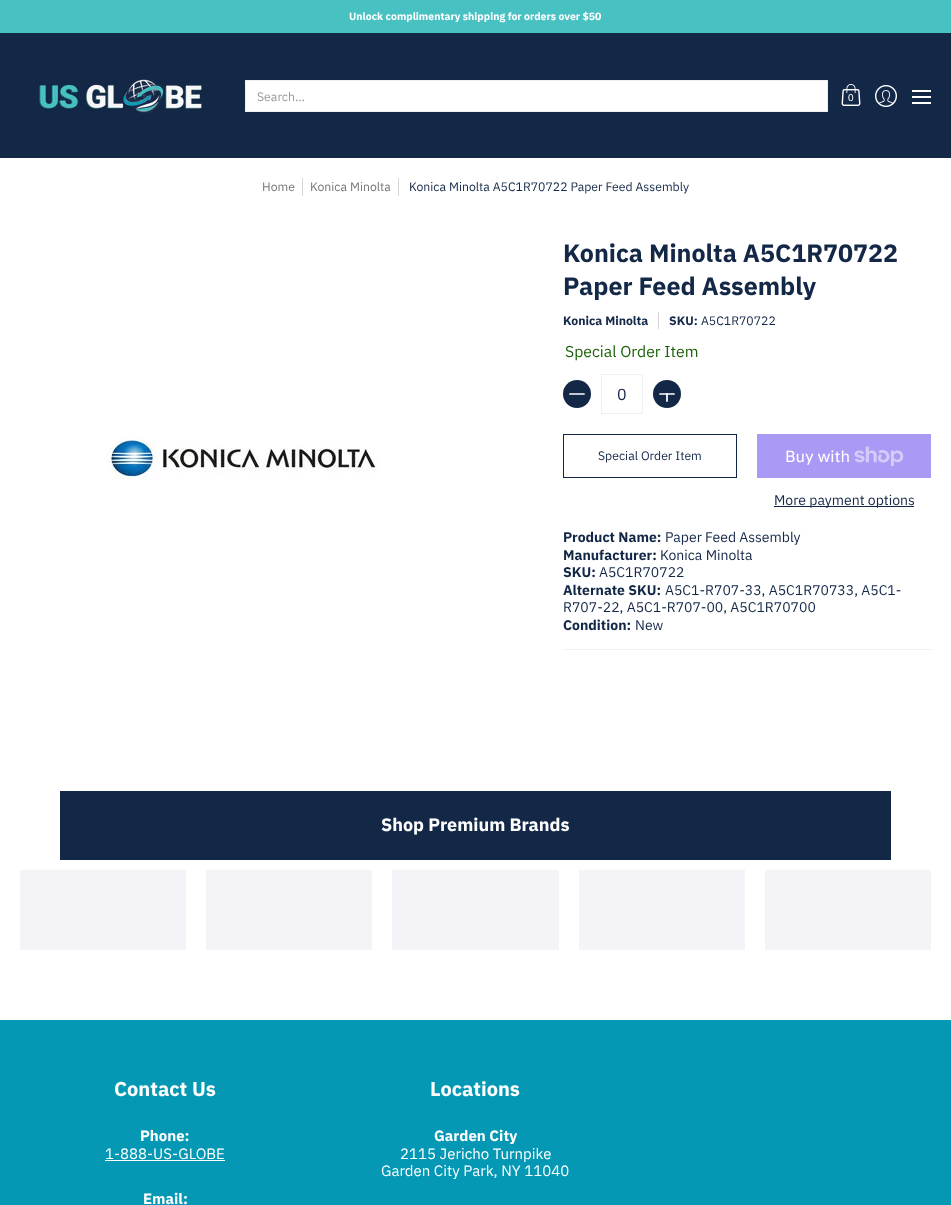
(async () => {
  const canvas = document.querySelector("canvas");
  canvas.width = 951;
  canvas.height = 1205;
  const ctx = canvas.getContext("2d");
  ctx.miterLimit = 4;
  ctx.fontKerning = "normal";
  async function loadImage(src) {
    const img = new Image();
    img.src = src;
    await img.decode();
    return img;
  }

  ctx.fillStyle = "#ffffff";
  ctx.fillRect(0, 0, 951, 1205);
  ctx.fillStyle = "#48c1c2";
  ctx.fillRect(0, 0, 951, 33);
  ctx.fillStyle = "#132747";
  ctx.fillRect(0, 33, 951, 125);
  ctx.drawImage(await loadImage("img/1.png"), 39, 78, 163, 35);
  ctx.strokeStyle = "#efefef";
  ctx.strokeRect(245.5, 80.5, 582, 31);
  ctx.fillStyle = "#ffffff";
  ctx.fillRect(246, 81, 581, 30);
  ctx.drawImage(await loadImage("img/2.png"), 841, 84, 20, 22);
  ctx.drawImage(await loadImage("img/3.png"), 875, 85, 22, 22);
  for (const [x, y, w, h, color] of [
    [912, 90, 19, 2, "#ffffff"],
    [912, 102, 19, 2, "#ffffff"],
    [912, 96, 19, 2, "#ffffff"],
    [302, 178, 1, 18, "#d5d5d5"],
    [398, 178, 1, 18, "#d5d5d5"],
  ]) {
    ctx.fillStyle = color;
    ctx.fillRect(x, y, w, h);
  }
  ctx.drawImage(await loadImage("img/4.png"), 107, 436, 272, 44);
  ctx.fillRect(658, 312, 1, 17);
  ctx.fillStyle = "#132747";
  ctx.beginPath();
  ctx.arc(577, 394, 14, 0, Math.PI * 2);
  ctx.fill();
  ctx.drawImage(await loadImage("img/5.png"), 569, 393, 16, 2);
  ctx.strokeRect(601.5, 374.5, 41, 39);
  ctx.beginPath();
  ctx.arc(667, 394, 14, 0, Math.PI * 2);
  ctx.fill();
  ctx.drawImage(await loadImage("img/6.png"), 659, 393, 16, 9);
  ctx.strokeStyle = "#132747";
  ctx.strokeRect(563.5, 434.5, 173, 43);
  ctx.fillStyle = "#aa99f5";
  ctx.fillRect(757, 434, 174, 44);
  ctx.drawImage(await loadImage("img/7.png"), 854, 446, 50, 20);
  for (const [x, y, w, h, color] of [
    [774, 506, 140, 1, "#132747"],
    [563, 649, 368, 1, "#efefef"],
    [60, 791, 831, 69, "#132747"],
    [20, 870, 166, 80, "#f3f3f8"],
    [206, 870, 166, 80, "#f3f3f8"],
    [392, 870, 167, 80, "#f3f3f8"],
    [579, 870, 166, 80, "#f3f3f8"],
    [765, 870, 166, 80, "#f3f3f8"],
    [0, 1020, 951, 185, "#0498b4"],
    [105, 1160, 120, 1, "#ffffff"],
  ]) {
    ctx.fillStyle = color;
    ctx.fillRect(x, y, w, h);
  }
  ctx.font = "bold 10.5px IBM Plex Sans";
  ctx.fillText("Unlock complimentary shipping for orders over $50", 349, 20);
  ctx.font = "12.25px IBM Plex Sans";
  ctx.fillStyle = "#989898";
  ctx.fillText("Search...", 257, 101);
  ctx.font = "10px Liberation Sans";
  ctx.fillStyle = "#ffffff";
  ctx.fillText("0", 848, 101);
  ctx.font = "12.25px IBM Plex Sans";
  ctx.fillStyle = "#767676";
  ctx.fillText("Home", 262, 191);
  ctx.fillText("Konica Minolta", 310, 191);
  ctx.fillStyle = "#132747";
  ctx.fillText("Konica Minolta A5C1R70722 Paper Feed Assembly", 409, 191);
  ctx.font = "bold 25px IBM Plex Sans";
  ctx.fillText("Konica Minolta A5C1R70722", 563, 262);
  ctx.fillText("Paper Feed Assembly", 563, 295);
  ctx.font = "bold 12.25px IBM Plex Sans";
  ctx.fillText("Konica Minolta", 563, 325);
  ctx.fillText("SKU:", 669, 325);
  ctx.font = "12.25px IBM Plex Sans";
  ctx.fillText("A5C1R70722", 701, 325);
  ctx.font = "15.75px IBM Plex Sans";
  ctx.fillStyle = "#1b6109";
  ctx.fillText("Special Order Item", 565, 357);
  ctx.font = "16px IBM Plex Sans";
  ctx.fillStyle = "#132747";
  ctx.fillText("0", 617, 400);
  ctx.font = "12.25px IBM Plex Sans";
  ctx.fillText("Special Order Item", 598, 460);
  ctx.font = "16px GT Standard";
  ctx.fillStyle = "#ffffff";
  ctx.fillText("Buy with", 785, 462);
  ctx.font = "14px IBM Plex Sans";
  ctx.fillStyle = "#132747";
  ctx.fillText("More payment options", 774, 505);
  ctx.font = "bold 14px IBM Plex Sans";
  ctx.fillText("Product Name:", 563, 542);
  ctx.font = "14px IBM Plex Sans";
  ctx.fillText("Paper Feed Assembly", 665, 542);
  ctx.font = "bold 14px IBM Plex Sans";
  ctx.fillText("Manufacturer:", 563, 560);
  ctx.font = "14px IBM Plex Sans";
  ctx.fillText("Konica Minolta", 660, 560);
  ctx.font = "bold 14px IBM Plex Sans";
  ctx.fillText("SKU:", 563, 577);
  ctx.font = "14px IBM Plex Sans";
  ctx.fillText("A5C1R70722", 599, 577);
  ctx.font = "bold 14px IBM Plex Sans";
  ctx.fillText("Alternate SKU:", 563, 595);
  ctx.font = "14px IBM Plex Sans";
  ctx.fillText("A5C1-R707-33, A5C1R70733, A5C1-", 665, 595);
  ctx.fillText("R707-22, A5C1-R707-00, A5C1R70700", 563, 612);
  ctx.font = "bold 14px IBM Plex Sans";
  ctx.fillText("Condition:", 563, 630);
  ctx.font = "14px IBM Plex Sans";
  ctx.fillText("New", 635, 630);
  ctx.font = "bold 18px IBM Plex Sans";
  ctx.fillStyle = "#ffffff";
  ctx.fillText("Shop Premium Brands", 381, 831);
  ctx.font = "bold 20px IBM Plex Sans";
  ctx.fillText("Contact Us", 114, 1096);
  ctx.font = "bold 15px IBM Plex Sans";
  ctx.fillText("Phone:", 140, 1141);
  ctx.font = "15px IBM Plex Sans";
  ctx.fillText("1-888-US-GLOBE", 105, 1159);
  ctx.font = "bold 15px IBM Plex Sans";
  ctx.fillText("Email:", 143, 1204);
  ctx.font = "bold 20px IBM Plex Sans";
  ctx.fillText("Locations", 430, 1096);
  ctx.font = "bold 15px IBM Plex Sans";
  ctx.fillText("Garden City", 434, 1141);
  ctx.font = "15px IBM Plex Sans";
  ctx.fillText("2115 Jericho Turnpike", 400, 1159);
  ctx.fillText("Garden City Park, NY 11040", 381, 1176);
})();
